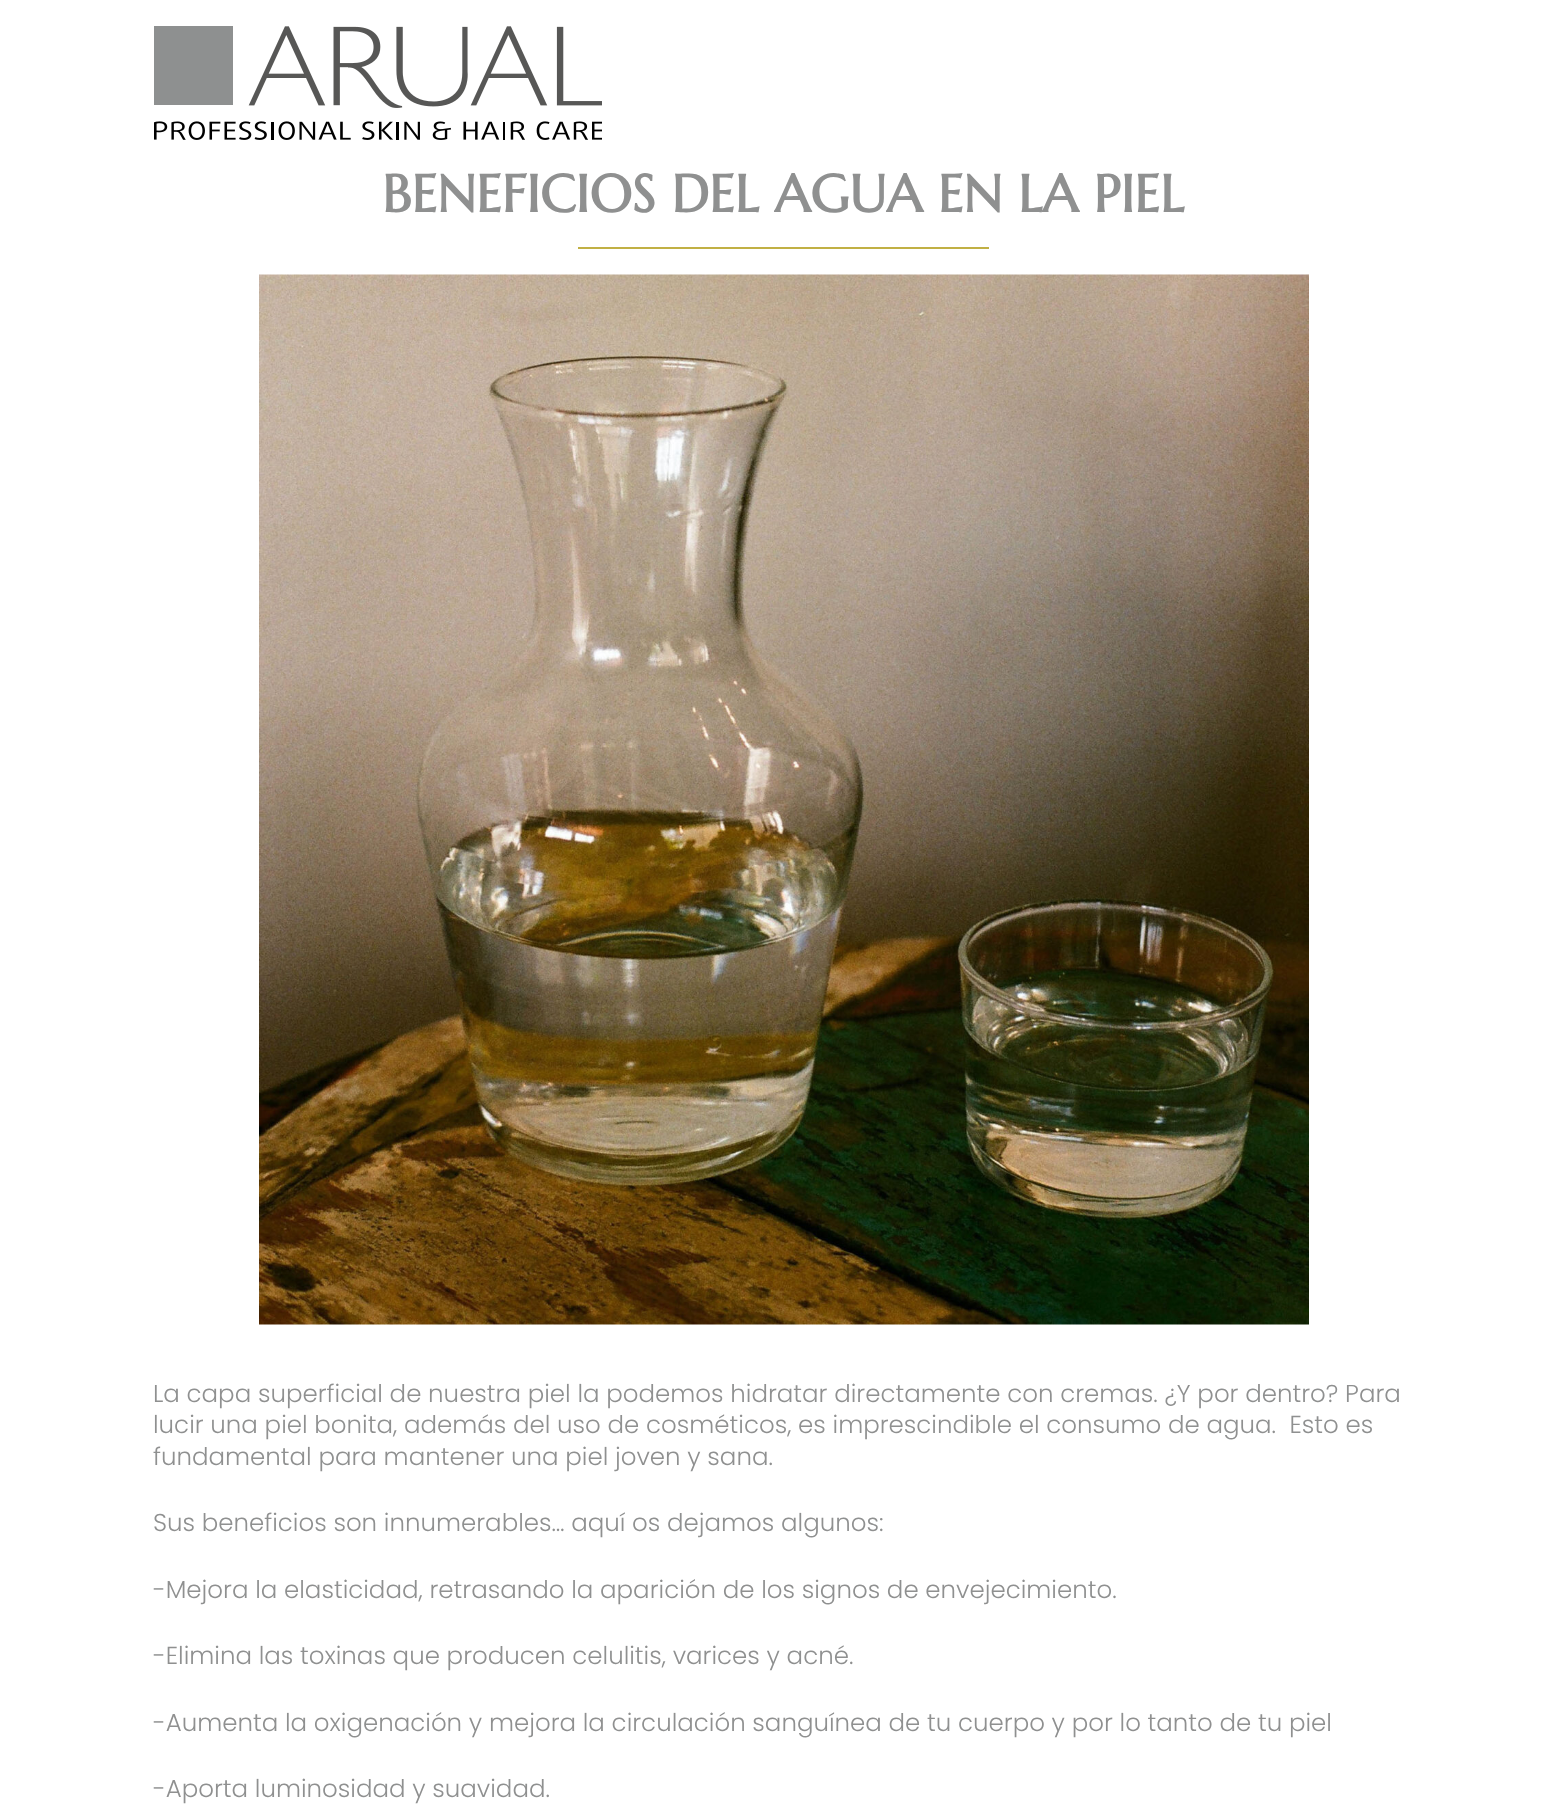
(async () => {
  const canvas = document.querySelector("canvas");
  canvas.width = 1565;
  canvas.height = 1810;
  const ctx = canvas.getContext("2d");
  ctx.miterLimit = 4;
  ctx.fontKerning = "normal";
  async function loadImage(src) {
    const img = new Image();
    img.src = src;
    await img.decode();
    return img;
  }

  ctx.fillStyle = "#ffffff";
  ctx.fillRect(0, 0, 1565, 1810);
  ctx.drawImage(await loadImage("img/1.png"), 154, 26, 448, 114);
  ctx.fillStyle = "#c1b044";
  ctx.fillRect(578, 247, 411, 2);
  ctx.drawImage(await loadImage("img/2.png"), 259, 274, 1050, 1051);
  ctx.font = "bold 52.5px Marcellus";
  ctx.fillStyle = "#8f9090";
  ctx.fillText("BENEFICIOS DEL AGUA EN LA PIEL", 382, 212);
  ctx.font = "300 24.5px Poppins";
  for (const [text, x, y] of [
    ["La capa superficial de nuestra piel la podemos hidratar directamente con cremas. ¿Y por dentro? Para", 153, 1402],
    ["lucir una piel bonita, además del uso de cosméticos, es imprescindible el consumo de agua.  Esto es", 153, 1433],
    ["fundamental para mantener una piel joven y sana.", 153, 1465],
    ["Sus beneficios son innumerables… aquí os dejamos algunos:", 153, 1531],
    ["-Mejora la elasticidad, retrasando la aparición de los signos de envejecimiento.", 153, 1598],
    ["-Elimina las toxinas que producen celulitis, varices y acné.", 153, 1664],
    ["-Aumenta la oxigenación y mejora la circulación sanguínea de tu cuerpo y por lo tanto de tu piel", 153, 1731],
    ["-Aporta luminosidad y suavidad.", 153, 1797],
  ]) {
    ctx.fillText(text, x, y);
  }
})();
